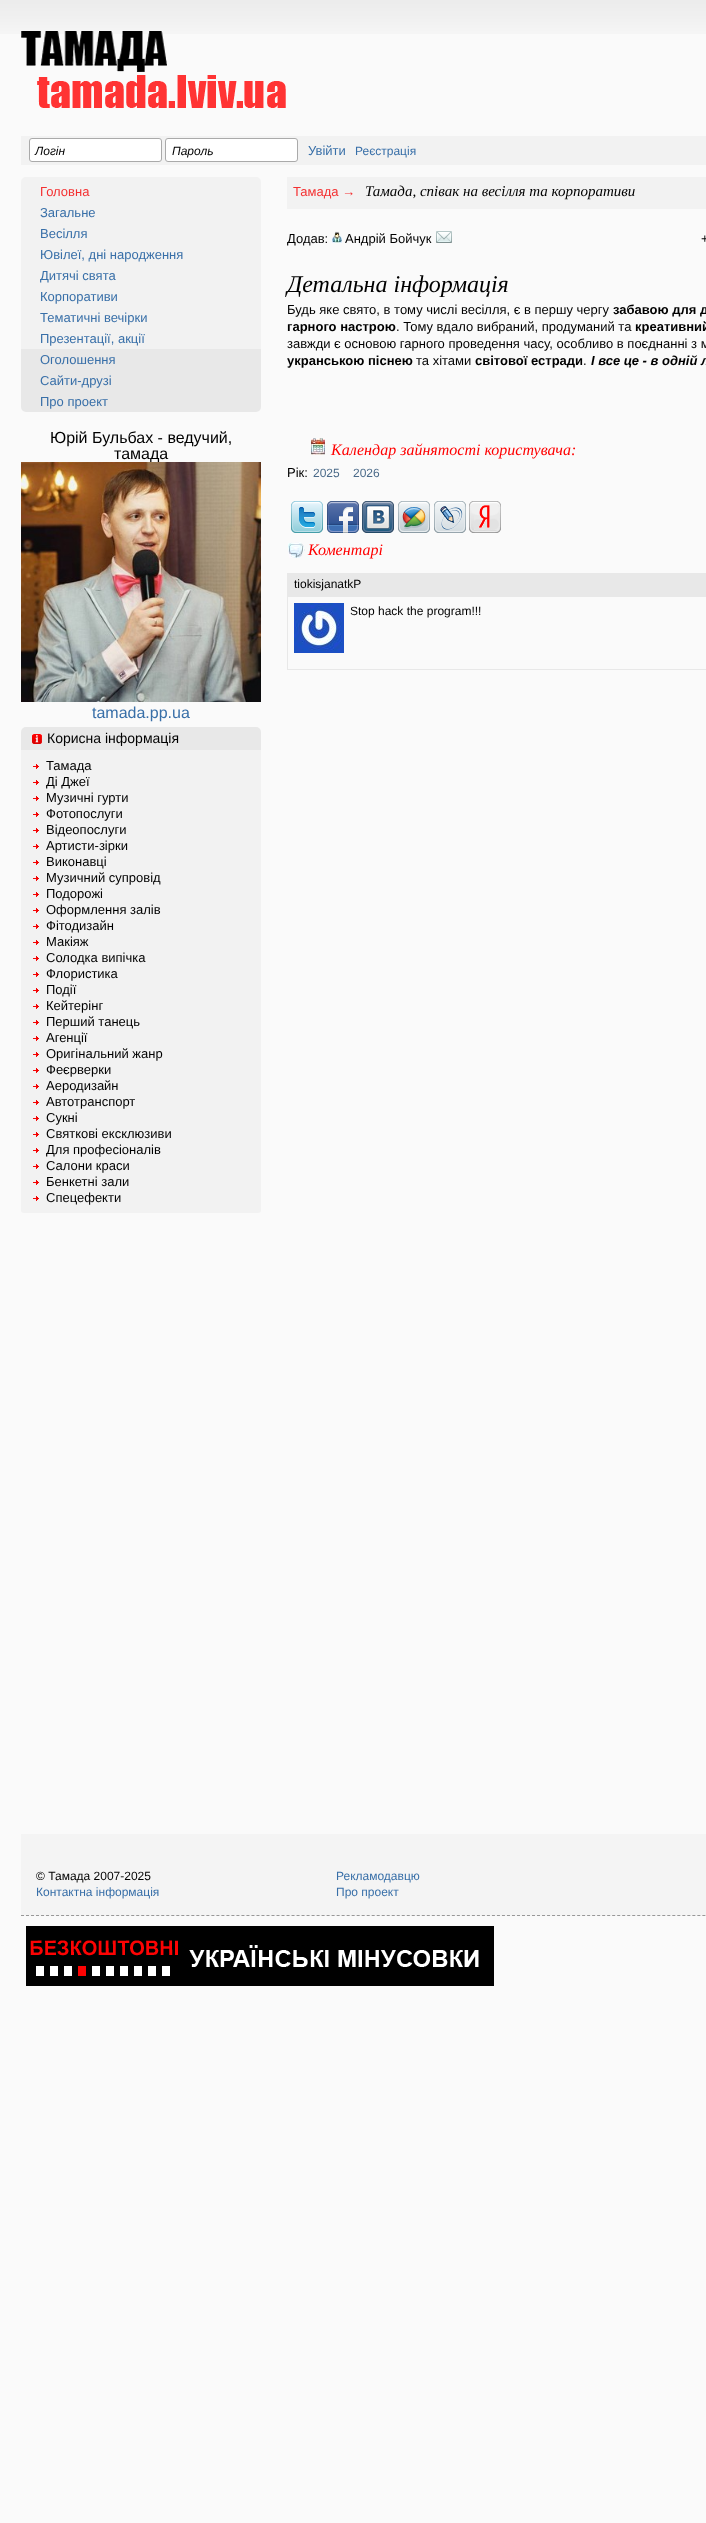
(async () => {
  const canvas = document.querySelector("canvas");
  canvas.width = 706;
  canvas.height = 2523;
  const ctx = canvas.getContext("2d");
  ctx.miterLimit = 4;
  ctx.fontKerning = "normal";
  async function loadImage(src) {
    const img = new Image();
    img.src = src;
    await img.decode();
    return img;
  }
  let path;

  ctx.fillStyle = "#fafafa";
  ctx.fillRect(0, 0, 706, 2523);
  ctx.drawImage(await loadImage("img/1.png"), 0, 0, 706, 34);
  ctx.drawImage(await loadImage("img/2.png"), 21, 31, 265, 77);
  ctx.fillStyle = "#f2f2f2";
  ctx.fillRect(21, 136, 685, 29);
  ctx.fillStyle = "#ffffff";
  ctx.beginPath();
  ctx.roundRect(29.5, 138.5, 132, 23, 2.5);
  ctx.fill();
  ctx.strokeStyle = "#aaaaaa";
  ctx.stroke();
  ctx.beginPath();
  ctx.roundRect(165.5, 138.5, 132, 23, 2.5);
  ctx.fill();
  ctx.stroke();
  ctx.fillStyle = "#f2f2f2";
  ctx.beginPath();
  ctx.roundRect(21, 177, 240, 25, [5, 5, 0, 0]);
  ctx.fill();
  ctx.fillRect(21, 202, 240, 147);
  ctx.fillStyle = "#e8e8e8";
  ctx.fillRect(21, 349, 240, 42);
  ctx.beginPath();
  ctx.roundRect(21, 391, 240, 21, [0, 0, 5, 5]);
  ctx.fill();
  ctx.fillStyle = "#f2f2f2";
  ctx.beginPath();
  ctx.roundRect(21, 731, 240, 482, 3);
  ctx.fill();
  ctx.fillStyle = "#e8e8e8";
  ctx.beginPath();
  ctx.roundRect(21, 727, 240, 23, [5, 5, 0, 0]);
  ctx.fill();
  ctx.drawImage(await loadImage("img/4.png"), 32, 734, 10, 10);
  ctx.drawImage(await loadImage("img/5.png"), 33, 764, 6, 5);
  ctx.drawImage(await loadImage("img/5.png"), 33, 780, 6, 5);
  ctx.drawImage(await loadImage("img/5.png"), 33, 796, 6, 5);
  ctx.drawImage(await loadImage("img/5.png"), 33, 812, 6, 5);
  ctx.drawImage(await loadImage("img/5.png"), 33, 828, 6, 5);
  ctx.drawImage(await loadImage("img/5.png"), 33, 844, 6, 5);
  ctx.drawImage(await loadImage("img/5.png"), 33, 860, 6, 5);
  ctx.drawImage(await loadImage("img/5.png"), 33, 876, 6, 5);
  ctx.drawImage(await loadImage("img/5.png"), 33, 892, 6, 5);
  ctx.drawImage(await loadImage("img/5.png"), 33, 908, 6, 5);
  ctx.drawImage(await loadImage("img/5.png"), 33, 924, 6, 5);
  ctx.drawImage(await loadImage("img/5.png"), 33, 940, 6, 5);
  ctx.drawImage(await loadImage("img/5.png"), 33, 956, 6, 5);
  ctx.drawImage(await loadImage("img/5.png"), 33, 972, 6, 5);
  ctx.drawImage(await loadImage("img/5.png"), 33, 988, 6, 5);
  ctx.drawImage(await loadImage("img/5.png"), 33, 1004, 6, 5);
  ctx.drawImage(await loadImage("img/5.png"), 33, 1020, 6, 5);
  ctx.drawImage(await loadImage("img/5.png"), 33, 1036, 6, 5);
  ctx.drawImage(await loadImage("img/5.png"), 33, 1052, 6, 5);
  ctx.drawImage(await loadImage("img/5.png"), 33, 1068, 6, 5);
  ctx.drawImage(await loadImage("img/5.png"), 33, 1084, 6, 5);
  ctx.drawImage(await loadImage("img/5.png"), 33, 1100, 6, 5);
  ctx.drawImage(await loadImage("img/5.png"), 33, 1116, 6, 5);
  ctx.drawImage(await loadImage("img/5.png"), 33, 1132, 6, 5);
  ctx.drawImage(await loadImage("img/5.png"), 33, 1148, 6, 5);
  ctx.drawImage(await loadImage("img/5.png"), 33, 1164, 6, 5);
  ctx.drawImage(await loadImage("img/5.png"), 33, 1180, 6, 5);
  ctx.drawImage(await loadImage("img/5.png"), 33, 1196, 6, 5);
  ctx.fillStyle = "#f2f2f2";
  ctx.fillRect(287, 177, 419, 32);
  ctx.drawImage(await loadImage("img/6.png"), 332, 231, 10, 12);
  ctx.drawImage(await loadImage("img/7.png"), 436, 231, 16, 12);
  ctx.drawImage(await loadImage("img/8.png"), 311, 438, 14, 17);
  ctx.drawImage(await loadImage("img/9.png"), 291, 501, 32, 32);
  ctx.drawImage(await loadImage("img/10.png"), 327, 501, 32, 32);
  ctx.drawImage(await loadImage("img/11.png"), 362, 501, 32, 32);
  ctx.drawImage(await loadImage("img/12.png"), 398, 501, 32, 32);
  ctx.drawImage(await loadImage("img/13.png"), 434, 501, 32, 32);
  ctx.drawImage(await loadImage("img/14.png"), 469, 501, 32, 32);
  ctx.drawImage(await loadImage("img/15.png"), 288, 542, 17, 16);
  ctx.fillStyle = "#e8e8e8";
  ctx.fillRect(287, 573, 419, 23);
  ctx.strokeStyle = "#e8e8e8";
  ctx.strokeRect(287.5, 596.5, 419, 73);
  ctx.drawImage(await loadImage("img/16.png"), 294, 603, 50, 50);
  ctx.fillStyle = "#f4f4f4";
  ctx.fillRect(21, 1834, 685, 82);
  path = new Path2D("M21 1915.5H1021");
  ctx.strokeStyle = "#989898";
  ctx.setLineDash([3, 2.01]);
  ctx.stroke(path);
  ctx.drawImage(await loadImage("img/17.png"), 26, 1926, 468, 60);
  ctx.font = "13px Liberation Sans";
  ctx.fillStyle = "#386fa8";
  ctx.fillText("Увійти", 308, 155);
  ctx.font = "italic 12px Liberation Sans";
  ctx.fillStyle = "#000000";
  ctx.fillText("Логін", 35, 155);
  ctx.fillText("Пароль", 172, 155);
  ctx.font = "12px Liberation Sans";
  ctx.fillStyle = "#386fa8";
  ctx.fillText("Реєстрація", 355, 155);
  ctx.font = "13px Liberation Sans";
  ctx.fillStyle = "#f43031";
  ctx.fillText("Головна", 40, 196);
  ctx.fillStyle = "#386fa8";
  for (const [text, x, y] of [
    ["Загальне", 40, 217],
    ["Весілля", 40, 238],
    ["Ювілеї, дні народження", 40, 259],
    ["Дитячі свята", 40, 280],
    ["Корпоративи", 40, 301],
    ["Тематичні вечірки", 40, 322],
    ["Презентації, акції", 40, 343],
    ["Оголошення", 40, 364],
    ["Сайти-друзі", 40, 385],
    ["Про проект", 40, 406],
  ]) {
    ctx.fillText(text, x, y);
  }
  ctx.font = "16px Liberation Sans";
  ctx.fillStyle = "#000000";
  ctx.fillText("Юрій Бульбах - ведучий,", 50, 443);
  ctx.fillText("тамада", 114, 459);
  ctx.drawImage(await loadImage("img/3.png"), 21, 462, 240, 240);
  ctx.fillStyle = "#386fa8";
  ctx.fillText("tamada.pp.ua", 92, 718);
  ctx.font = "14px Liberation Sans";
  ctx.fillStyle = "#000000";
  ctx.fillText("Корисна інформація", 47, 743);
  ctx.font = "13px Liberation Sans";
  for (const [text, x, y] of [
    ["Тамада", 46, 770],
    ["Ді Джеї", 46, 786],
    ["Музичні гурти", 46, 802],
    ["Фотопослуги", 46, 818],
    ["Відеопослуги", 46, 834],
    ["Артисти-зірки", 46, 850],
    ["Виконавці", 46, 866],
    ["Музичний супровід", 46, 882],
    ["Подорожі", 46, 898],
    ["Оформлення залів", 46, 914],
    ["Фітодизайн", 46, 930],
    ["Макіяж", 46, 946],
    ["Солодка випічка", 46, 962],
    ["Флористика", 46, 978],
    ["Події", 46, 994],
    ["Кейтерінг", 46, 1010],
    ["Перший танець", 46, 1026],
    ["Агенції", 46, 1042],
    ["Оригінальний жанр", 46, 1058],
    ["Феєрверки", 46, 1074],
    ["Аеродизайн", 46, 1090],
    ["Автотранспорт", 46, 1106],
    ["Сукні", 46, 1122],
    ["Святкові ексклюзиви", 46, 1138],
    ["Для професіоналів", 46, 1154],
    ["Салони краси", 46, 1170],
    ["Бенкетні зали", 46, 1186],
    ["Спецефекти", 46, 1202],
  ]) {
    ctx.fillText(text, x, y);
  }
  ctx.fillStyle = "#f43031";
  ctx.fillText("Тамада →", 293, 196);
  ctx.font = "italic 15px Liberation Serif";
  ctx.fillStyle = "#000000";
  ctx.fillText("Тамада, співак на весілля та корпоративи", 365, 196);
  ctx.font = "13px Liberation Sans";
  for (const [text, x, y] of [
    ["Додав:", 287, 243],
    ["Андрій Бойчук", 345, 243],
    ["+", 701, 243],
  ]) {
    ctx.fillText(text, x, y);
  }
  ctx.font = "italic 24px Liberation Serif";
  ctx.fillText("Детальна інформація", 287, 292);
  ctx.font = "13px Liberation Sans";
  ctx.fillText("Будь яке свято, в тому числі весілля, є в першу чергу", 287, 314);
  ctx.font = "bold 13px Liberation Sans";
  ctx.fillText("забавою для д", 613, 314);
  ctx.fillText("гарного настрою", 287, 331);
  ctx.font = "13px Liberation Sans";
  ctx.fillText(". Тому вдало вибраний, продуманий та", 396, 331);
  ctx.font = "bold 13px Liberation Sans";
  ctx.fillText("креативний", 635, 331);
  ctx.font = "13px Liberation Sans";
  ctx.fillText("завжди є основою гарного проведення часу, особливо в поєднанні з м", 287, 348);
  ctx.font = "bold 13px Liberation Sans";
  ctx.fillText("укранською піснею", 287, 365);
  ctx.font = "13px Liberation Sans";
  ctx.fillText("та хітами", 416, 365);
  ctx.font = "bold 13px Liberation Sans";
  ctx.fillText("світової естради", 475, 365);
  ctx.font = "13px Liberation Sans";
  ctx.fillText(".", 583, 365);
  ctx.font = "italic bold 13px Liberation Sans";
  ctx.fillText("І все це - в одній л", 591, 365);
  ctx.font = "italic 16px Liberation Serif";
  ctx.fillStyle = "#ff0000";
  ctx.fillText("Календар зайнятості користувача:", 331, 455);
  ctx.font = "13px Liberation Sans";
  ctx.fillStyle = "#000000";
  ctx.fillText("Рік:", 287, 477);
  ctx.font = "12px Liberation Sans";
  ctx.fillStyle = "#4a6a89";
  ctx.fillText("2025", 313, 477);
  ctx.fillText("2026", 353, 477);
  ctx.font = "italic 16px Liberation Serif";
  ctx.fillStyle = "#ff0000";
  ctx.fillText("Коментарі", 308, 555);
  ctx.font = "12px Liberation Sans";
  ctx.fillStyle = "#000000";
  for (const [text, x, y] of [
    ["tiokisjanatkР", 294, 588],
    ["Stop hack the program!!!", 350, 615],
    ["© Тамада 2007-2025", 36, 1880],
  ]) {
    ctx.fillText(text, x, y);
  }
  ctx.fillStyle = "#386fa8";
  for (const [text, x, y] of [
    ["Контактна інформація", 36, 1896],
    ["Рекламодавцю", 336, 1880],
    ["Про проект", 336, 1896],
  ]) {
    ctx.fillText(text, x, y);
  }
})();
